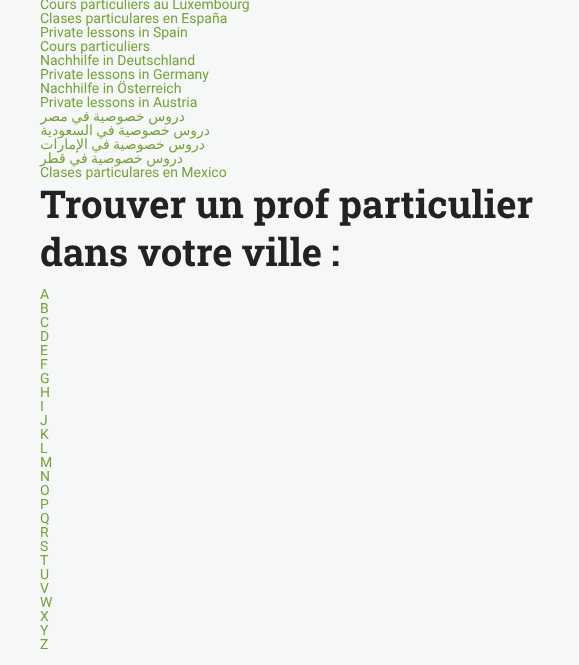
(async () => {
  const canvas = document.querySelector("canvas");
  canvas.width = 579;
  canvas.height = 665;
  const ctx = canvas.getContext("2d");
  ctx.miterLimit = 4;
  ctx.fontKerning = "normal";

  ctx.fillStyle = "#f6f8f7";
  ctx.fillRect(0, 0, 579, 665);
  ctx.font = "14px Roboto";
  ctx.fillStyle = "#75a23b";
  for (const [text, x, y] of [
    ["Cours particuliers au Luxembourg", 40, 9],
    ["Clases particulares en España", 40, 23],
    ["Private lessons in Spain", 40, 37],
    ["Cours particuliers", 40, 51],
    ["Nachhilfe in Deutschland", 40, 65],
    ["Private lessons in Germany", 40, 79],
    ["Nachhilfe in Österreich", 40, 93],
    ["Private lessons in Austria", 40, 107],
  ]) {
    ctx.fillText(text, x, y);
  }
  ctx.wordSpacing = "-1px";
  ctx.direction = "rtl";
  ctx.font = "14px DejaVu Sans";
  for (const [text, x, y] of [
    ["دروس خصوصية في مصر", 185, 121],
    ["دروس خصوصية في السعودية", 210, 135],
    ["دروس خصوصية في الإمارات", 205, 149],
    ["دروس خصوصية في قطر", 183, 163],
  ]) {
    ctx.fillText(text, x, y);
  }
  ctx.wordSpacing = "0px";
  ctx.direction = "ltr";
  ctx.font = "14px Roboto";
  ctx.fillText("Clases particulares en Mexico", 40, 177);
  ctx.font = "bold 38.4px Roboto Slab";
  ctx.fillStyle = "#222222";
  ctx.fillText("Trouver un prof particulier", 40, 218);
  ctx.fillText("dans votre ville :", 40, 266);
  ctx.font = "14px Roboto";
  ctx.fillStyle = "#75a23b";
  for (const [text, x, y] of [
    ["A", 40, 299],
    ["B", 40, 313],
    ["C", 40, 327],
    ["D", 40, 341],
    ["E", 40, 355],
    ["F", 40, 369],
    ["G", 40, 383],
    ["H", 40, 397],
    ["I", 40, 411],
    ["J", 40, 425],
    ["K", 40, 439],
    ["L", 40, 453],
    ["M", 40, 467],
    ["N", 40, 481],
    ["O", 40, 495],
    ["P", 40, 509],
    ["Q", 40, 523],
    ["R", 40, 537],
    ["S", 40, 551],
    ["T", 40, 565],
    ["U", 40, 579],
    ["V", 40, 593],
    ["W", 40, 607],
    ["X", 40, 621],
    ["Y", 40, 635],
    ["Z", 40, 649],
  ]) {
    ctx.fillText(text, x, y);
  }
})();
